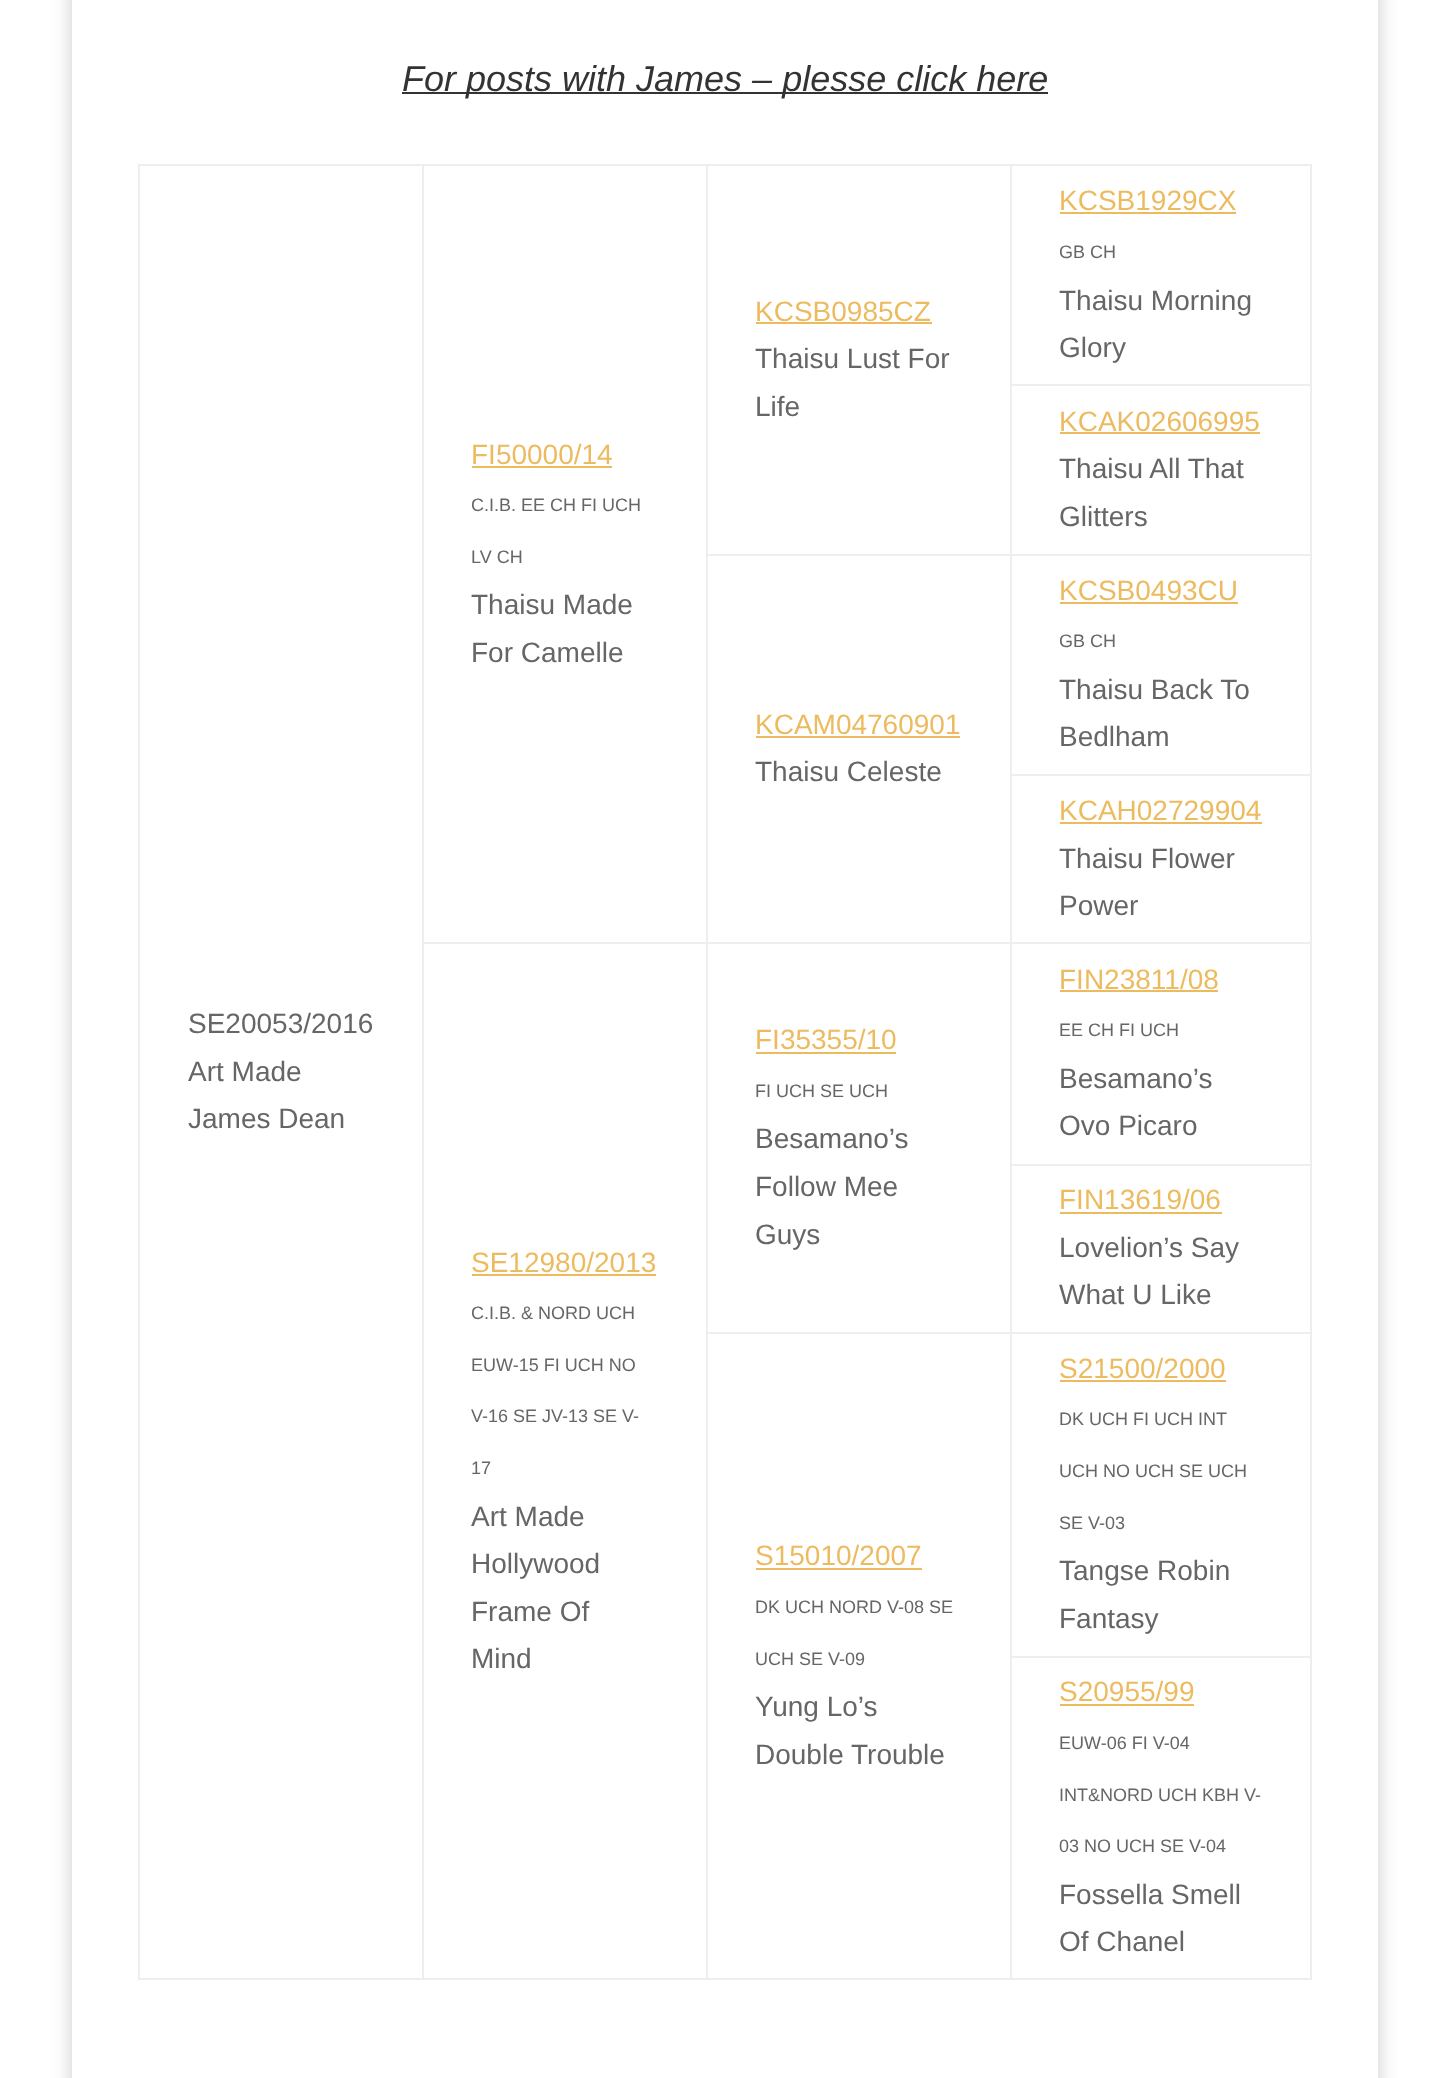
(async () => {
  const canvas = document.querySelector("canvas");
  canvas.width = 1450;
  canvas.height = 2078;
  const ctx = canvas.getContext("2d");
  ctx.miterLimit = 4;
  ctx.fontKerning = "normal";
  let path;

  ctx.fillStyle = "#ffffff";
  ctx.fillRect(0, 0, 1450, 2078);
  ctx.save();
  path = new Path2D("M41 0H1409V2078H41ZM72-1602H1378V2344H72Z");
  ctx.clip(path, "evenodd");
  ctx.fillStyle = "rgba(0, 0, 0, 0.2)";
  ctx.filter = "blur(10px)";
  ctx.beginPath();
  ctx.rect(72, -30, 1306, 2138);
  ctx.fill();
  ctx.filter = "none";
  ctx.restore();
  for (const [x, y, w, h, color] of [
    [402, 92, 646, 2, "#333333"],
    [138, 164, 1174, 2, "#eeeeee"],
    [1310, 164, 2, 1816, "#eeeeee"],
    [138, 1978, 1174, 2, "#eeeeee"],
    [138, 164, 2, 1816, "#eeeeee"],
    [756, 322, 176, 2, "#edbb5f"],
    [1060, 212, 176, 2, "#edbb5f"],
    [472, 466, 140, 2, "#edbb5f"],
    [1010, 384, 302, 2, "#eeeeee"],
    [1010, 554, 302, 2, "#eeeeee"],
    [1010, 774, 302, 2, "#eeeeee"],
    [1010, 942, 302, 2, "#eeeeee"],
    [1010, 1164, 302, 2, "#eeeeee"],
    [1010, 1332, 302, 2, "#eeeeee"],
    [1010, 1656, 302, 2, "#eeeeee"],
    [1010, 1656, 2, 324, "#eeeeee"],
    [1010, 1332, 2, 326, "#eeeeee"],
    [706, 1332, 306, 2, "#eeeeee"],
    [1010, 1164, 2, 170, "#eeeeee"],
    [1010, 942, 2, 224, "#eeeeee"],
    [706, 942, 306, 2, "#eeeeee"],
    [1010, 774, 2, 170, "#eeeeee"],
    [1010, 554, 2, 222, "#eeeeee"],
    [706, 554, 306, 2, "#eeeeee"],
    [1010, 164, 2, 392, "#eeeeee"],
    [1060, 432, 200, 2, "#edbb5f"],
    [706, 1332, 2, 648, "#eeeeee"],
    [706, 942, 2, 392, "#eeeeee"],
    [422, 942, 286, 2, "#eeeeee"],
    [706, 164, 2, 780, "#eeeeee"],
    [756, 736, 204, 2, "#edbb5f"],
    [1060, 602, 178, 2, "#edbb5f"],
    [1060, 822, 202, 2, "#edbb5f"],
    [756, 1052, 140, 2, "#edbb5f"],
    [1060, 990, 158, 2, "#edbb5f"],
    [422, 164, 2, 1816, "#eeeeee"],
    [472, 1274, 184, 2, "#edbb5f"],
    [1060, 1212, 162, 2, "#edbb5f"],
    [756, 1568, 166, 2, "#edbb5f"],
    [1060, 1380, 166, 2, "#edbb5f"],
    [1060, 1704, 134, 2, "#edbb5f"],
  ]) {
    ctx.fillStyle = color;
    ctx.fillRect(x, y, w, h);
  }
  ctx.font = "italic 36px Liberation Sans";
  ctx.fillStyle = "#333333";
  ctx.fillText("For posts with James – plesse click here", 402, 91);
  ctx.font = "28px Liberation Sans";
  ctx.fillStyle = "#edbb5f";
  ctx.fillText("KCSB0985CZ", 755, 321);
  ctx.fillStyle = "#666666";
  ctx.fillText("Thaisu Lust For", 755, 368);
  ctx.fillText("Life", 755, 416);
  ctx.fillStyle = "#edbb5f";
  ctx.fillText("KCSB1929CX", 1059, 210);
  ctx.font = "18px Liberation Sans";
  ctx.fillStyle = "#666666";
  ctx.fillText("GB CH", 1059, 258);
  ctx.font = "28px Liberation Sans";
  ctx.fillText("Thaisu Morning", 1059, 310);
  ctx.fillText("Glory", 1059, 357);
  ctx.fillStyle = "#edbb5f";
  ctx.fillText("FI50000/14", 471, 464);
  ctx.font = "18px Liberation Sans";
  ctx.fillStyle = "#666666";
  ctx.fillText("C.I.B. EE CH FI UCH", 471, 511);
  ctx.fillText("LV CH", 471, 563);
  ctx.font = "28px Liberation Sans";
  for (const [text, x, y] of [
    ["Thaisu Made", 471, 614],
    ["For Camelle", 471, 662],
    ["SE20053/2016", 188, 1033],
    ["Art Made", 188, 1081],
    ["James Dean", 188, 1128],
  ]) {
    ctx.fillText(text, x, y);
  }
  ctx.fillStyle = "#edbb5f";
  ctx.fillText("KCAK02606995", 1059, 431);
  ctx.fillStyle = "#666666";
  ctx.fillText("Thaisu All That", 1059, 478);
  ctx.fillText("Glitters", 1059, 526);
  ctx.fillStyle = "#edbb5f";
  ctx.fillText("KCAM04760901", 755, 734);
  ctx.fillStyle = "#666666";
  ctx.fillText("Thaisu Celeste", 755, 781);
  ctx.fillStyle = "#edbb5f";
  ctx.fillText("KCSB0493CU", 1059, 600);
  ctx.font = "18px Liberation Sans";
  ctx.fillStyle = "#666666";
  ctx.fillText("GB CH", 1059, 647);
  ctx.font = "28px Liberation Sans";
  ctx.fillText("Thaisu Back To", 1059, 699);
  ctx.fillText("Bedlham", 1059, 746);
  ctx.fillStyle = "#edbb5f";
  ctx.fillText("KCAH02729904", 1059, 820);
  ctx.fillStyle = "#666666";
  ctx.fillText("Thaisu Flower", 1059, 868);
  ctx.fillText("Power", 1059, 915);
  ctx.fillStyle = "#edbb5f";
  ctx.fillText("FI35355/10", 755, 1049);
  ctx.font = "18px Liberation Sans";
  ctx.fillStyle = "#666666";
  ctx.fillText("FI UCH SE UCH", 755, 1097);
  ctx.font = "28px Liberation Sans";
  for (const [text, x, y] of [
    ["Besamano’s", 755, 1148],
    ["Follow Mee", 755, 1196],
    ["Guys", 755, 1244],
  ]) {
    ctx.fillText(text, x, y);
  }
  ctx.fillStyle = "#edbb5f";
  ctx.fillText("FIN23811/08", 1059, 989);
  ctx.font = "18px Liberation Sans";
  ctx.fillStyle = "#666666";
  ctx.fillText("EE CH FI UCH", 1059, 1036);
  ctx.font = "28px Liberation Sans";
  ctx.fillText("Besamano’s", 1059, 1088);
  ctx.fillText("Ovo Picaro", 1059, 1135);
  ctx.fillStyle = "#edbb5f";
  ctx.fillText("SE12980/2013", 471, 1272);
  ctx.font = "18px Liberation Sans";
  ctx.fillStyle = "#666666";
  for (const [text, x, y] of [
    ["C.I.B. & NORD UCH", 471, 1319],
    ["EUW-15 FI UCH NO", 471, 1371],
    ["V-16 SE JV-13 SE V-", 471, 1422],
    ["17", 471, 1474],
  ]) {
    ctx.fillText(text, x, y);
  }
  ctx.font = "28px Liberation Sans";
  for (const [text, x, y] of [
    ["Art Made", 471, 1526],
    ["Hollywood", 471, 1573],
    ["Frame Of", 471, 1621],
    ["Mind", 471, 1668],
  ]) {
    ctx.fillText(text, x, y);
  }
  ctx.fillStyle = "#edbb5f";
  ctx.fillText("FIN13619/06", 1059, 1209);
  ctx.fillStyle = "#666666";
  ctx.fillText("Lovelion’s Say", 1059, 1257);
  ctx.fillText("What U Like", 1059, 1304);
  ctx.fillStyle = "#edbb5f";
  ctx.fillText("S15010/2007", 755, 1565);
  ctx.font = "18px Liberation Sans";
  ctx.fillStyle = "#666666";
  ctx.fillText("DK UCH NORD V-08 SE", 755, 1613);
  ctx.fillText("UCH SE V-09", 755, 1665);
  ctx.font = "28px Liberation Sans";
  ctx.fillText("Yung Lo’s", 755, 1716);
  ctx.fillText("Double Trouble", 755, 1764);
  ctx.fillStyle = "#edbb5f";
  ctx.fillText("S21500/2000", 1059, 1378);
  ctx.font = "18px Liberation Sans";
  ctx.fillStyle = "#666666";
  for (const [text, x, y] of [
    ["DK UCH FI UCH INT", 1059, 1425],
    ["UCH NO UCH SE UCH", 1059, 1477],
    ["SE V-03", 1059, 1529],
  ]) {
    ctx.fillText(text, x, y);
  }
  ctx.font = "28px Liberation Sans";
  ctx.fillText("Tangse Robin", 1059, 1580);
  ctx.fillText("Fantasy", 1059, 1628);
  ctx.fillStyle = "#edbb5f";
  ctx.fillText("S20955/99", 1059, 1701);
  ctx.font = "18px Liberation Sans";
  ctx.fillStyle = "#666666";
  for (const [text, x, y] of [
    ["EUW-06 FI V-04", 1059, 1749],
    ["INT&NORD UCH KBH V-", 1059, 1801],
    ["03 NO UCH SE V-04", 1059, 1852],
  ]) {
    ctx.fillText(text, x, y);
  }
  ctx.font = "28px Liberation Sans";
  ctx.fillText("Fossella Smell", 1059, 1904);
  ctx.fillText("Of Chanel", 1059, 1951);
})();
